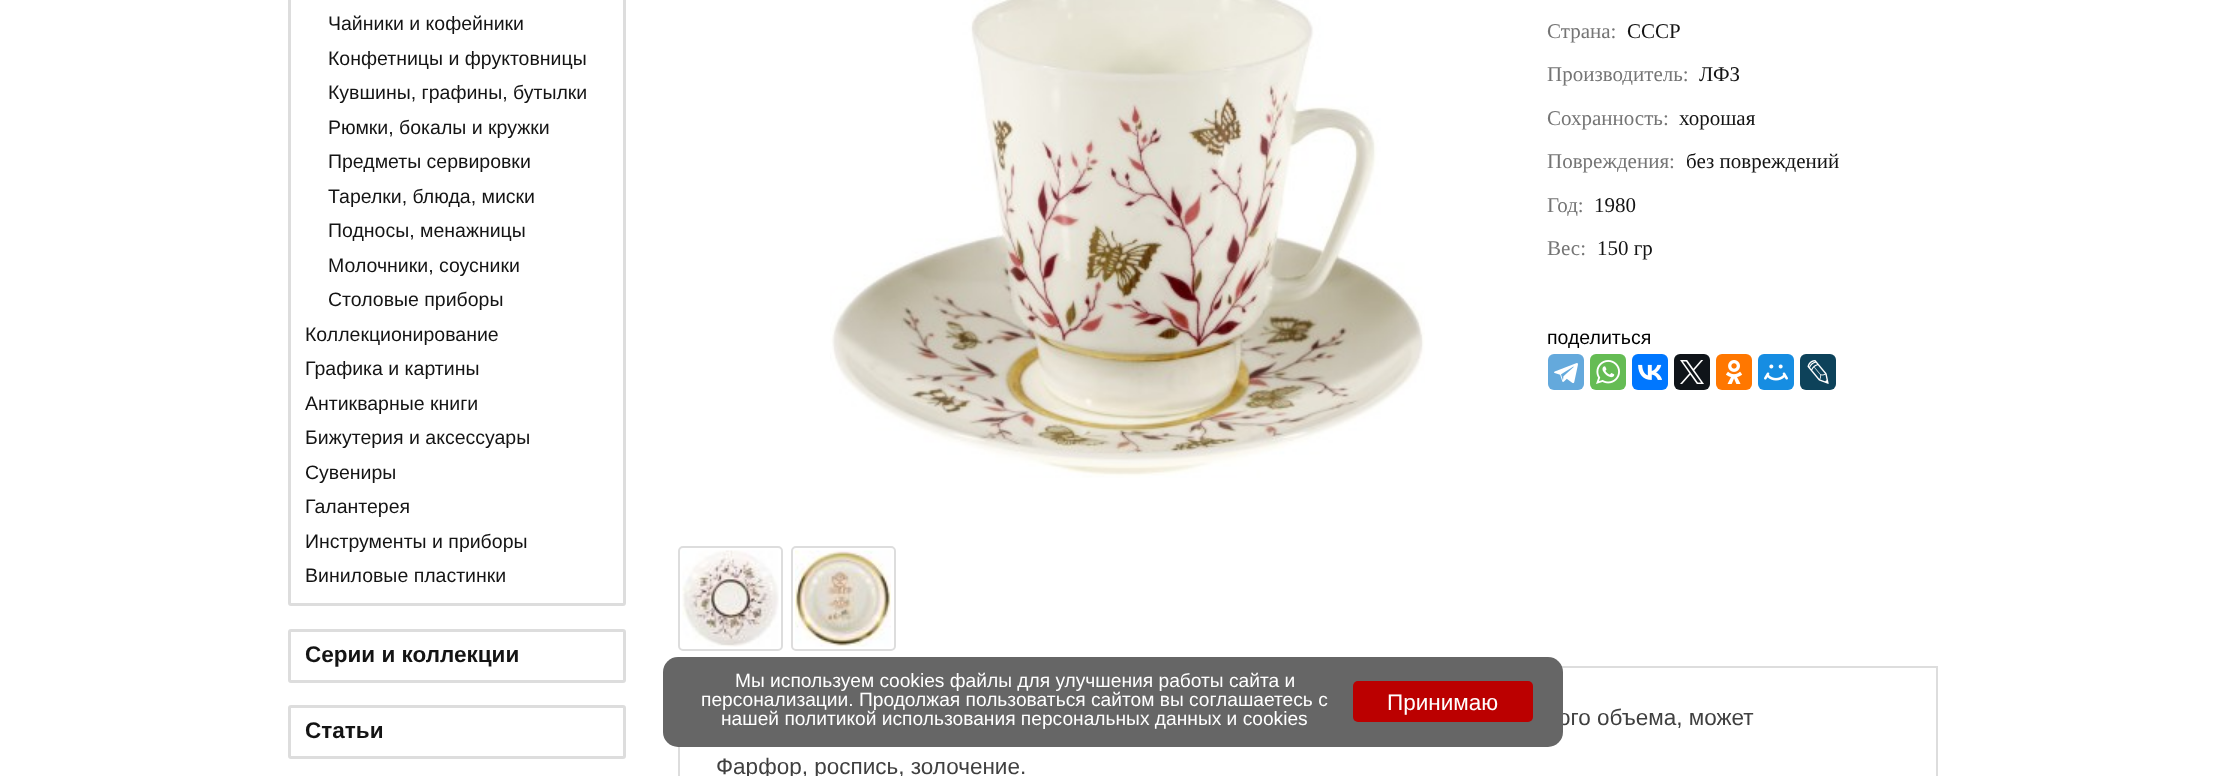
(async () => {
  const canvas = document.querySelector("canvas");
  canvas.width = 2224;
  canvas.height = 776;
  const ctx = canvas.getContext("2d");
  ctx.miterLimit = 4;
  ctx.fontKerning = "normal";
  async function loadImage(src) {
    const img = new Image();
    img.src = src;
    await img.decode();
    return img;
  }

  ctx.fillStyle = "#ffffff";
  ctx.fillRect(0, 0, 2224, 776);
  ctx.beginPath();
  ctx.roundRect(289.5, -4.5, 335, 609, 1.5);
  ctx.strokeStyle = "#dddddd";
  ctx.lineWidth = 3;
  ctx.stroke();
  ctx.beginPath();
  ctx.roundRect(289.5, 630.5, 335, 51, 1.5);
  ctx.stroke();
  ctx.beginPath();
  ctx.roundRect(289.5, 706.5, 335, 51, 1.5);
  ctx.stroke();
  ctx.drawImage(await loadImage("img/1.png"), 830, 0, 595, 478);
  ctx.fillStyle = "#64a9dc";
  ctx.beginPath();
  ctx.roundRect(1548, 354, 36, 36, 6);
  ctx.fill();
  ctx.drawImage(await loadImage("img/2.png"), 1554, 363, 24, 21);
  ctx.fillStyle = "#65bc54";
  ctx.beginPath();
  ctx.roundRect(1590, 354, 36, 36, 6);
  ctx.fill();
  ctx.drawImage(await loadImage("img/3.png"), 1596, 360, 24, 24);
  ctx.fillStyle = "#0077ff";
  ctx.beginPath();
  ctx.roundRect(1632, 354, 36, 36, 6);
  ctx.fill();
  ctx.drawImage(await loadImage("img/4.png"), 1638, 364, 24, 16);
  ctx.fillStyle = "#0f1419";
  ctx.beginPath();
  ctx.roundRect(1674, 354, 36, 36, 6);
  ctx.fill();
  ctx.drawImage(await loadImage("img/5.png"), 1680, 360, 24, 24);
  ctx.fillStyle = "#ff7700";
  ctx.beginPath();
  ctx.roundRect(1716, 354, 36, 36, 6);
  ctx.fill();
  ctx.drawImage(await loadImage("img/6.png"), 1726, 360, 17, 24);
  ctx.fillStyle = "#168de2";
  ctx.beginPath();
  ctx.roundRect(1758, 354, 36, 36, 6);
  ctx.fill();
  ctx.drawImage(await loadImage("img/7.png"), 1764, 364, 24, 17);
  ctx.fillStyle = "#0d425a";
  ctx.beginPath();
  ctx.roundRect(1800, 354, 36, 36, 6);
  ctx.fill();
  ctx.drawImage(await loadImage("img/8.png"), 1807, 360, 22, 24);
  ctx.beginPath();
  ctx.roundRect(679, 547, 103, 103, 4);
  ctx.lineWidth = 2;
  ctx.stroke();
  ctx.drawImage(await loadImage("img/9.png"), 682, 550, 97, 97);
  ctx.beginPath();
  ctx.roundRect(792, 547, 103, 103, 4);
  ctx.stroke();
  ctx.drawImage(await loadImage("img/10.png"), 795, 550, 96, 97);
  ctx.strokeRect(679, 667, 1258, 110);
  ctx.font = "19.5px Liberation Sans";
  ctx.fillStyle = "#141414";
  for (const [text, x, y] of [
    ["Чайники и кофейники", 328, 30],
    ["Конфетницы и фруктовницы", 328, 65],
    ["Кувшины, графины, бутылки", 328, 99],
    ["Рюмки, бокалы и кружки", 328, 134],
    ["Предметы сервировки", 328, 168],
    ["Тарелки, блюда, миски", 328, 203],
    ["Подносы, менажницы", 328, 237],
    ["Молочники, соусники", 328, 272],
    ["Столовые приборы", 328, 306],
    ["Коллекционирование", 305, 341],
    ["Графика и картины", 305, 375],
    ["Антикварные книги", 305, 410],
    ["Бижутерия и аксессуары", 305, 444],
    ["Сувениры", 305, 479],
    ["Галантерея", 305, 513],
    ["Инструменты и приборы", 305, 548],
    ["Виниловые пластинки", 305, 582],
  ]) {
    ctx.fillText(text, x, y);
  }
  ctx.font = "bold 22.5px Liberation Sans";
  ctx.fillText("Серии и коллекции", 305, 662);
  ctx.fillText("Статьи", 305, 738);
  ctx.font = "21px Liberation Serif";
  ctx.fillStyle = "#757575";
  ctx.fillText("Страна:", 1547, 38);
  ctx.fillStyle = "#141414";
  ctx.fillText("СССР", 1627, 38);
  ctx.fillStyle = "#757575";
  ctx.fillText("Производитель:", 1547, 81);
  ctx.fillStyle = "#141414";
  ctx.fillText("ЛФЗ", 1699, 81);
  ctx.fillStyle = "#757575";
  ctx.fillText("Сохранность:", 1547, 125);
  ctx.fillStyle = "#141414";
  ctx.fillText("хорошая", 1679, 125);
  ctx.fillStyle = "#757575";
  ctx.fillText("Повреждения:", 1547, 168);
  ctx.fillStyle = "#141414";
  ctx.fillText("без повреждений", 1686, 168);
  ctx.fillStyle = "#757575";
  ctx.fillText("Год:", 1547, 212);
  ctx.fillStyle = "#141414";
  ctx.fillText("1980", 1594, 212);
  ctx.fillStyle = "#757575";
  ctx.fillText("Вес:", 1547, 255);
  ctx.fillStyle = "#141414";
  ctx.fillText("150 гр", 1597, 255);
  ctx.font = "19.5px Liberation Sans";
  ctx.fillStyle = "#000000";
  ctx.fillText("поделиться", 1547, 344);
  ctx.font = "22.5px Liberation Sans";
  ctx.fillStyle = "#404040";
  ctx.fillText("ого объема, может", 1558, 725);
  ctx.fillText("Фарфор, роспись, золочение.", 716, 774);
  ctx.fillStyle = "#666666";
  ctx.beginPath();
  ctx.roundRect(663, 657, 900, 90, 15);
  ctx.fill();
  ctx.font = "19.2px Liberation Sans";
  ctx.fillStyle = "#ffffff";
  for (const [text, x, y] of [
    ["Мы используем cookies файлы для улучшения работы сайта и", 735, 687],
    ["персонализации. Продолжая пользоваться сайтом вы соглашаетесь с", 701, 706],
    ["нашей политикой использования персональных данных и cookies", 721, 725],
  ]) {
    ctx.fillText(text, x, y);
  }
  ctx.fillStyle = "#bb0000";
  ctx.beginPath();
  ctx.roundRect(1353, 681, 180, 41, 5);
  ctx.fill();
  ctx.font = "22.5px Liberation Sans";
  ctx.fillStyle = "#ffffff";
  ctx.fillText("Принимаю", 1387, 710);
})();
